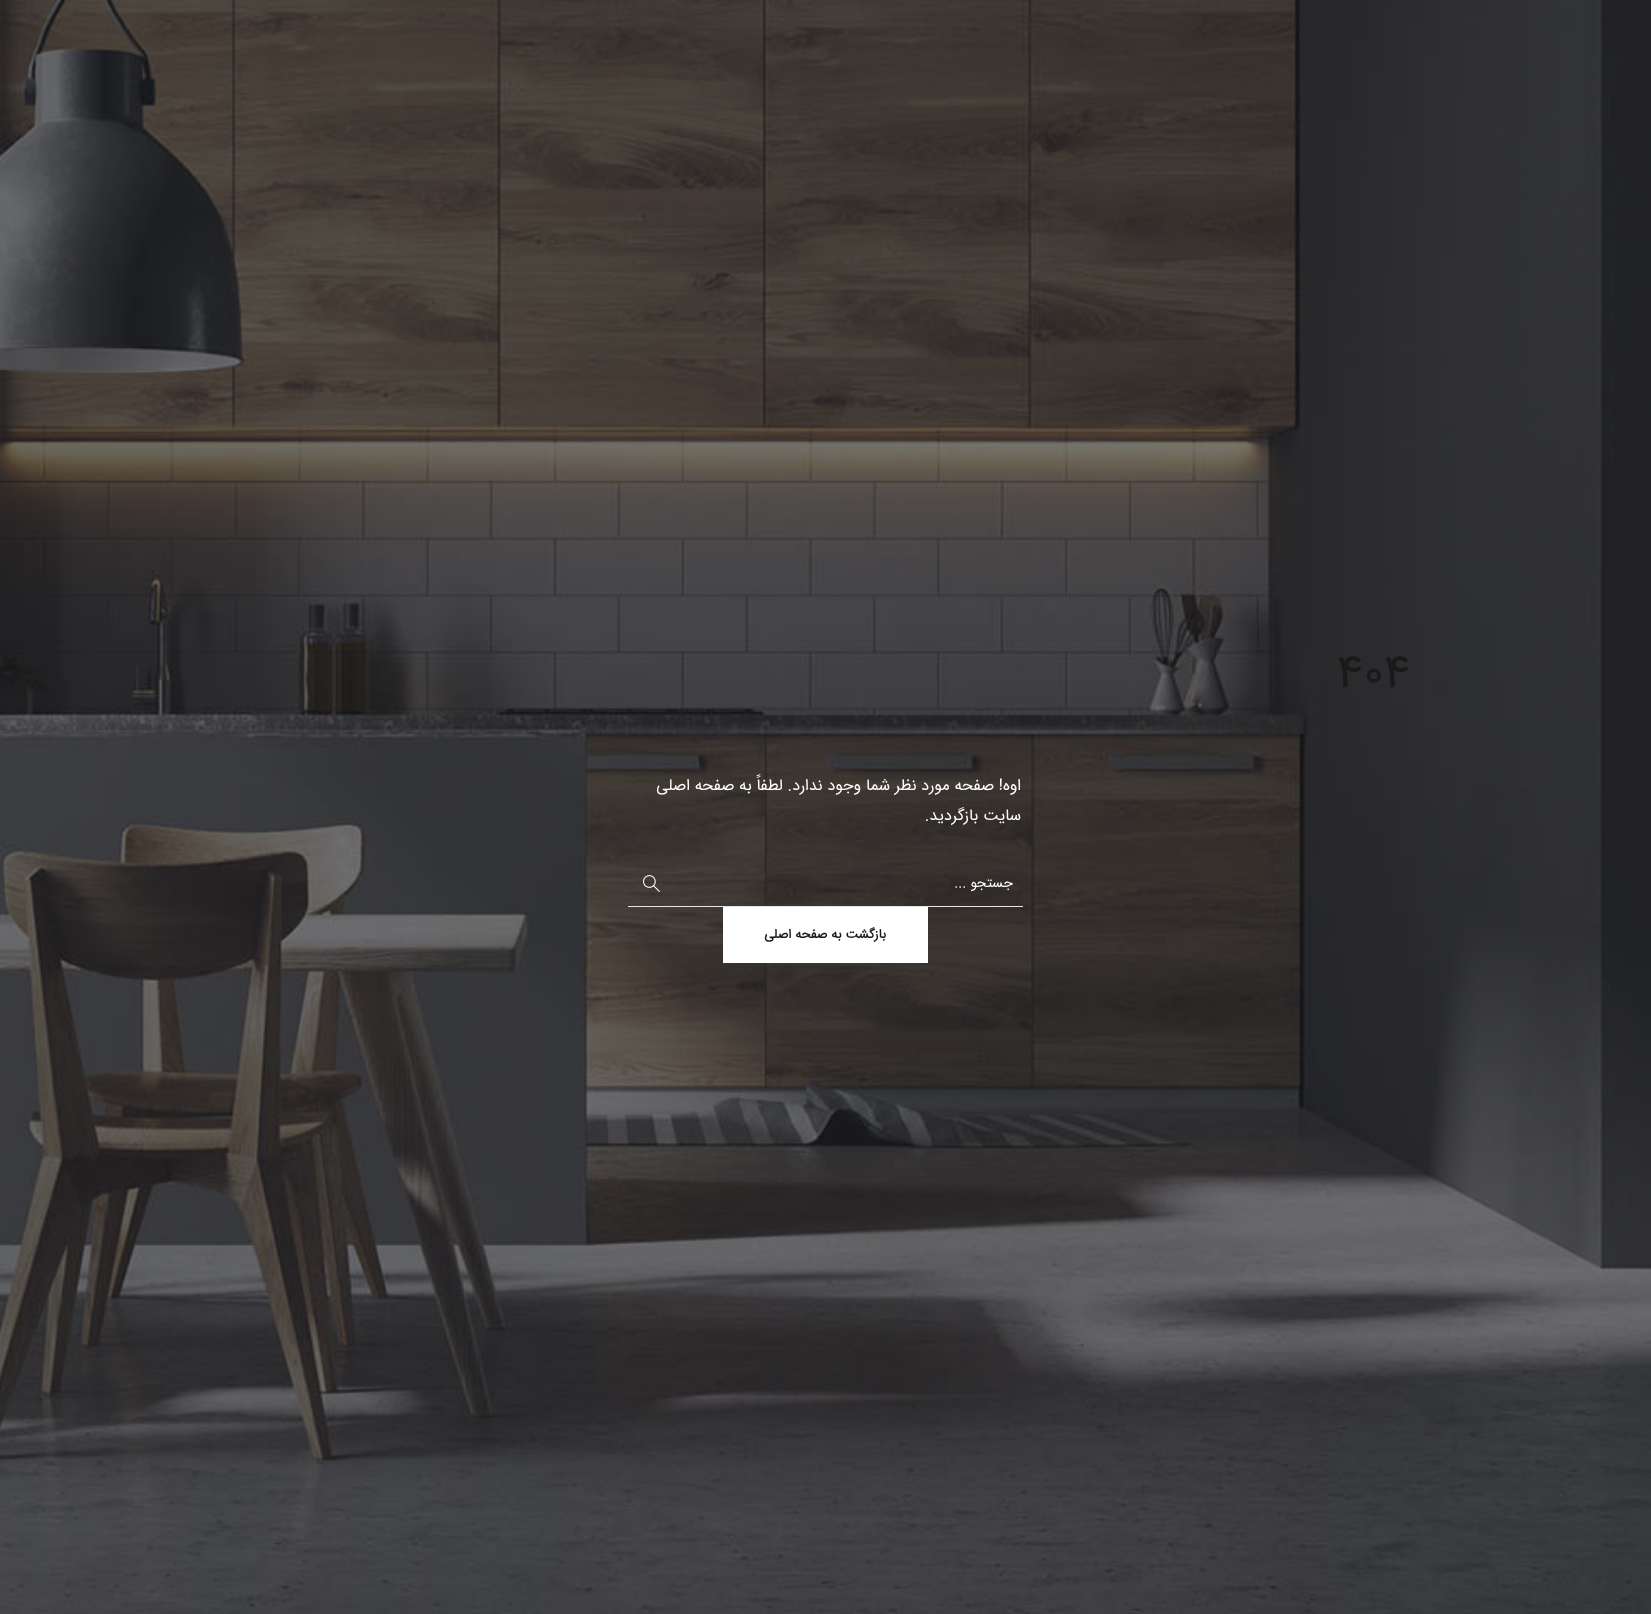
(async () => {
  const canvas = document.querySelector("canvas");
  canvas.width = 1651;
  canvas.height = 1614;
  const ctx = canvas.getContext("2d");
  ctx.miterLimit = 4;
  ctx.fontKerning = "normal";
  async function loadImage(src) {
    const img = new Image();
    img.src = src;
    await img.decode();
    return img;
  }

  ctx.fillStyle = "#ffffff";
  ctx.fillRect(0, 0, 1651, 1614);
  ctx.drawImage(await loadImage("img/1.png"), 0, 0, 1651, 1614);
  ctx.fillStyle = "#e6e6e6";
  ctx.fillRect(628, 906, 395, 1);
  ctx.drawImage(await loadImage("img/2.png"), 643, 875, 17, 17);
  ctx.fillStyle = "#ffffff";
  ctx.fillRect(723, 907, 205, 56);
  ctx.font = "48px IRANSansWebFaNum";
  ctx.fillStyle = "#1a1a1a";
  ctx.fillText("404", 1337, 687);
  ctx.direction = "rtl";
  ctx.font = "16px IRANSansWebFaNum";
  ctx.fillStyle = "#ffffff";
  ctx.fillText("اوه! صفحه مورد نظر شما وجود ندارد. لطفاً به صفحه اصلی", 1021, 790);
  ctx.fillText("سایت بازگردید.", 1021, 820);
  ctx.font = "14px IRANSansWebFaNum";
  ctx.fillText("جستجو ...", 1013, 887);
  ctx.font = "bold 13px IRANSansWebFaNum";
  ctx.fillStyle = "#1a1a1a";
  ctx.fillText("بازگشت به صفحه اصلی", 886, 938);
})();
